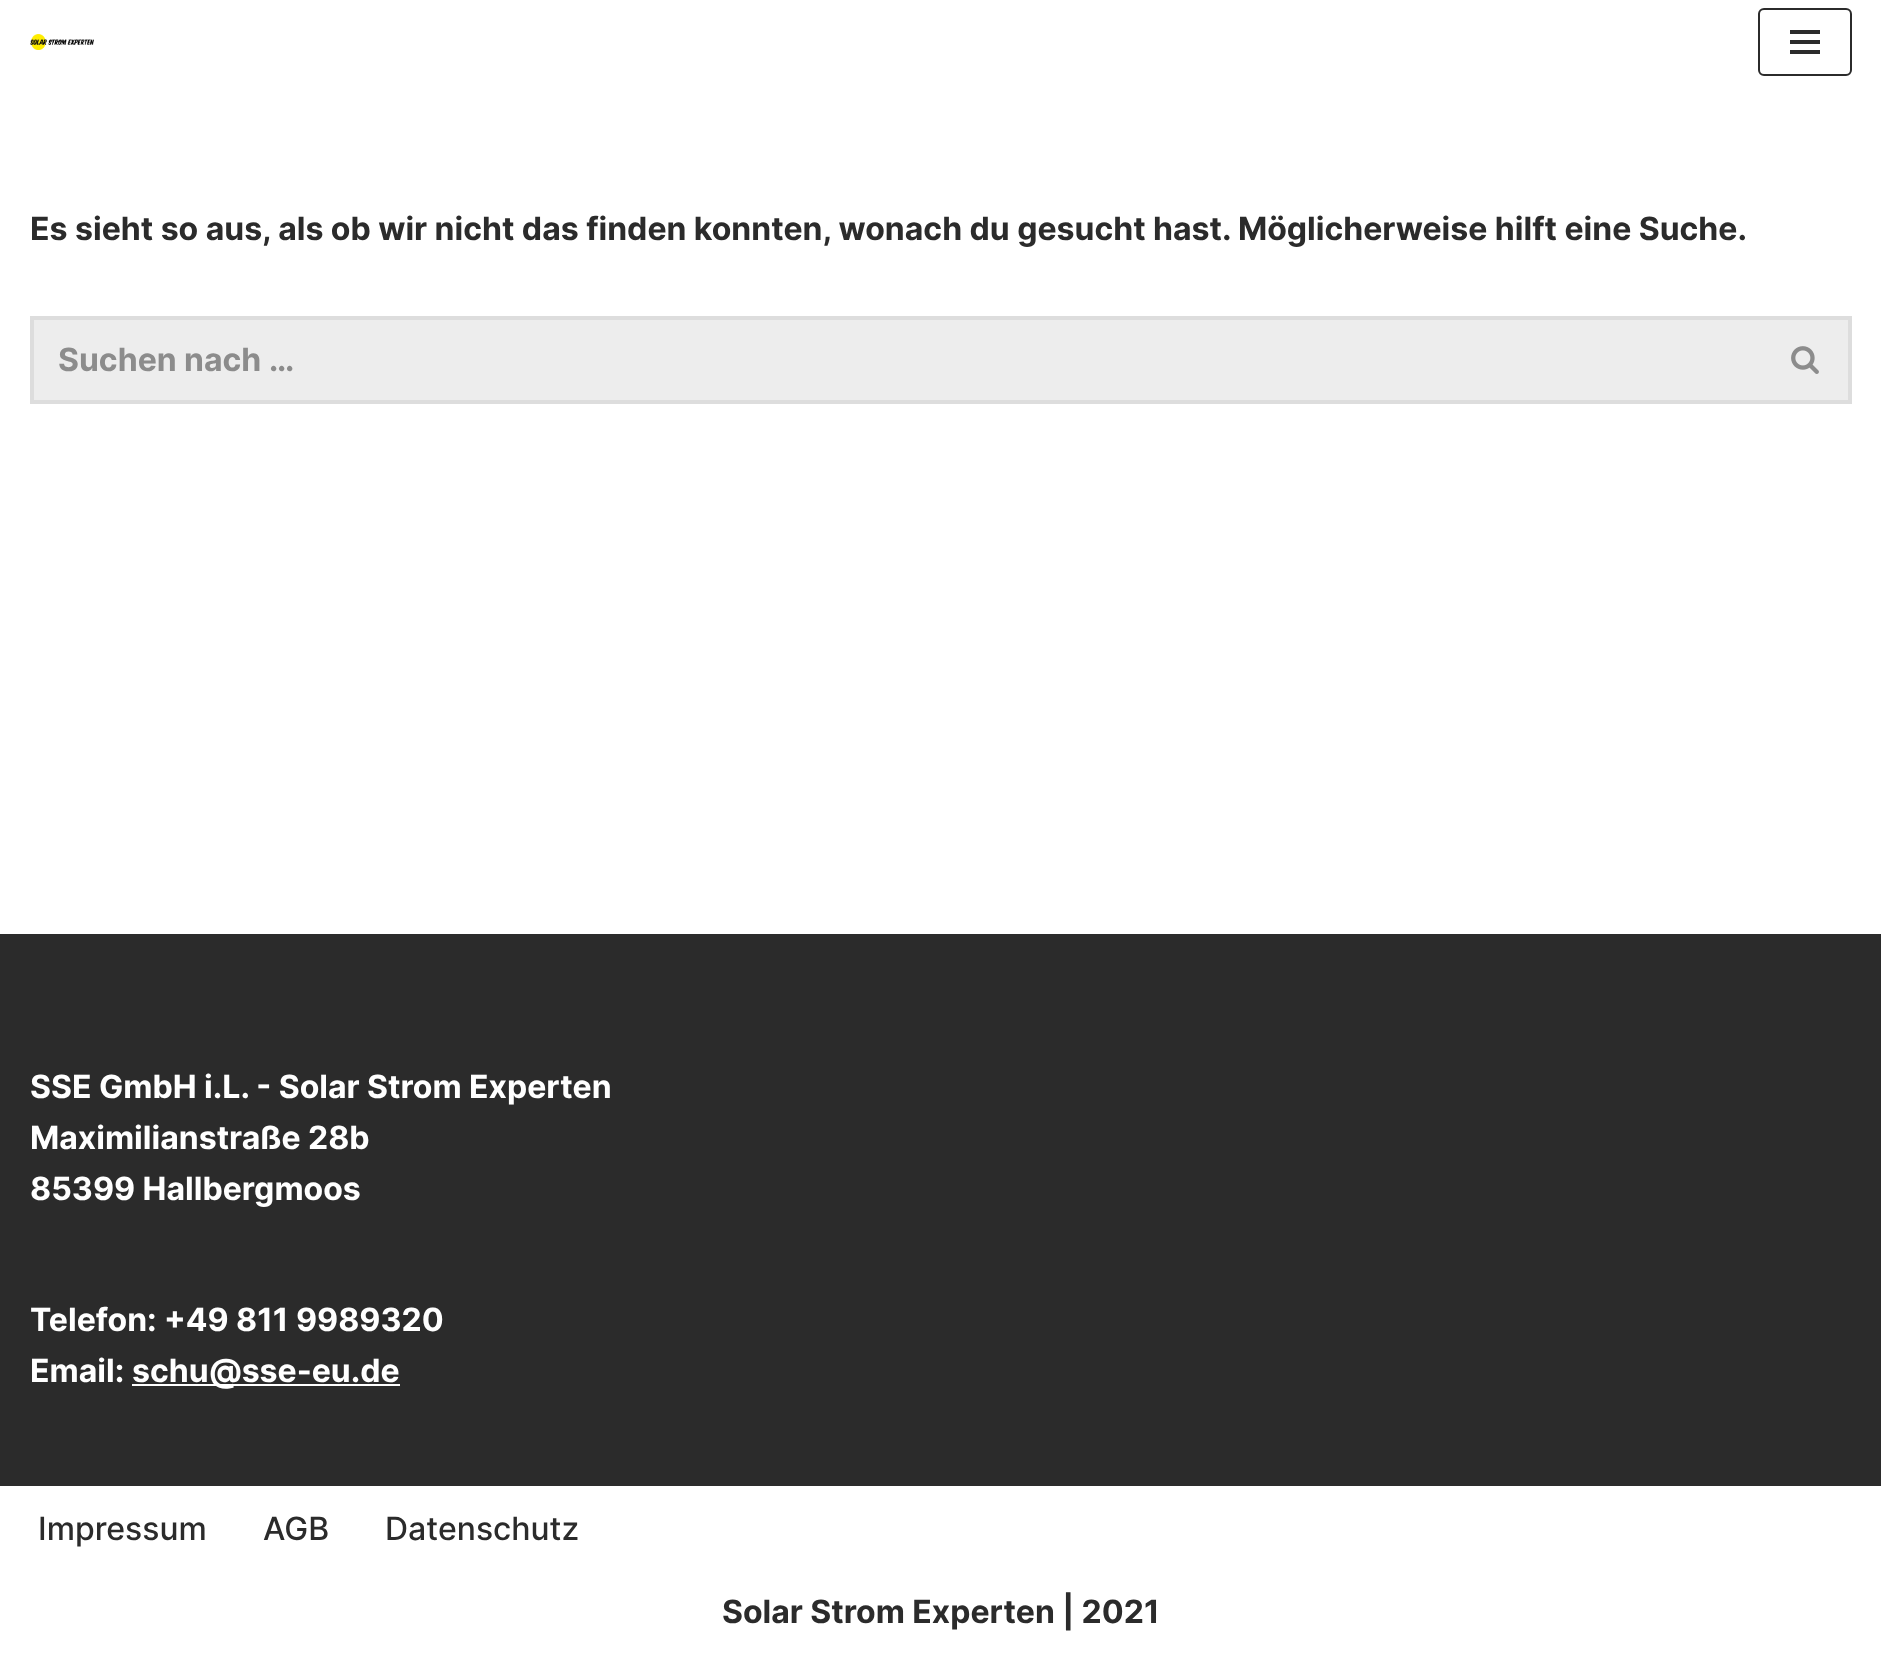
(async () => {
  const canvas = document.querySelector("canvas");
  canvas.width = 1881;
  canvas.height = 1653;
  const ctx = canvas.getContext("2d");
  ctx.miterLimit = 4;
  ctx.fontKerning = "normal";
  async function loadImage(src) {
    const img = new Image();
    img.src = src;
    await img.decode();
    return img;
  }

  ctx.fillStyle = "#ffffff";
  ctx.fillRect(0, 0, 1881, 1653);
  ctx.drawImage(await loadImage("img/1.png"), 30, 34, 64, 16);
  ctx.beginPath();
  ctx.roundRect(1759, 9, 92, 66, 5);
  ctx.strokeStyle = "#2b2b2b";
  ctx.lineWidth = 2;
  ctx.stroke();
  for (const [x, y, w, h, color] of [
    [1790, 30, 30, 4, "#2b2b2b"],
    [1790, 40, 30, 4, "#2b2b2b"],
    [1790, 50, 30, 4, "#2b2b2b"],
    [34, 320, 1814, 80, "#ededed"],
    [30, 316, 1822, 4, "#dddddd"],
    [30, 400, 1732, 4, "#dddddd"],
    [30, 316, 4, 88, "#dddddd"],
    [1848, 316, 4, 88, "#dddddd"],
    [1762, 400, 90, 4, "#dddddd"],
  ]) {
    ctx.fillStyle = color;
    ctx.fillRect(x, y, w, h);
  }
  ctx.drawImage(await loadImage("img/2.png"), 1791, 346, 28, 28);
  ctx.fillStyle = "#2b2b2b";
  ctx.fillRect(0, 934, 1881, 552);
  ctx.fillStyle = "#ffffff";
  ctx.fillRect(132, 1384, 268, 2);
  ctx.font = "bold 32px Inter";
  ctx.fillStyle = "#2b2b2b";
  ctx.fillText("Es sieht so aus, als ob wir nicht das finden konnten, wonach du gesucht hast. Möglicherweise hilft eine Suche.", 30, 240);
  ctx.fillStyle = "#8c8c8c";
  ctx.fillText("Suchen nach …", 58, 371);
  ctx.fillStyle = "#ffffff";
  for (const [text, x, y] of [
    ["SSE GmbH i.L. - Solar Strom Experten", 30, 1098],
    ["Maximilianstraße 28b", 30, 1149],
    ["85399 Hallbergmoos", 30, 1200],
    ["Telefon: +49 811 9989320", 30, 1331],
    ["Email:", 30, 1382],
    ["schu@sse-eu.de", 132, 1382],
  ]) {
    ctx.fillText(text, x, y);
  }
  ctx.font = "500 32px Inter";
  ctx.fillStyle = "#2b2b2b";
  for (const [text, x, y] of [
    ["Impressum", 38, 1540],
    ["AGB", 263, 1540],
    ["Datenschutz", 385, 1540],
  ]) {
    ctx.fillText(text, x, y);
  }
  ctx.font = "bold 32px Inter";
  ctx.fillText("Solar Strom Experten | 2021", 722, 1623);
})();
